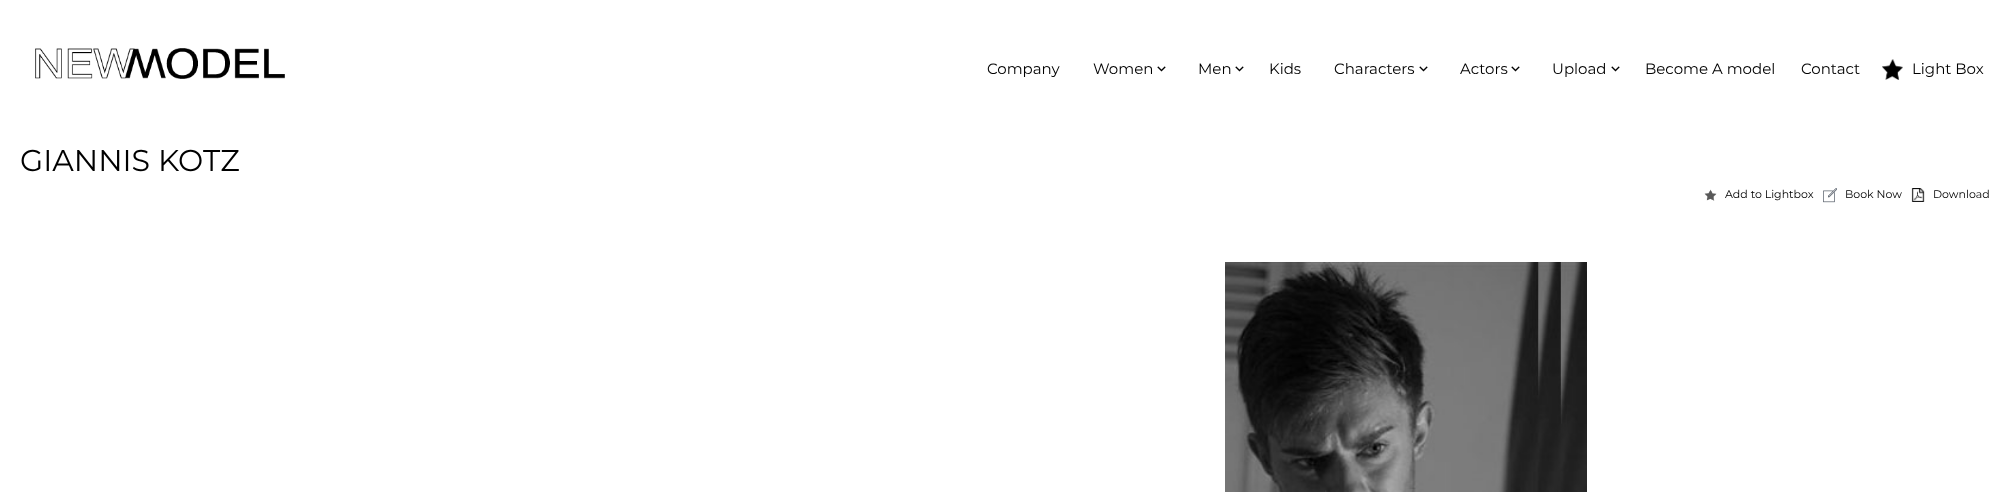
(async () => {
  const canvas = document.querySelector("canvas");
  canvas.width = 2009;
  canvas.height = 492;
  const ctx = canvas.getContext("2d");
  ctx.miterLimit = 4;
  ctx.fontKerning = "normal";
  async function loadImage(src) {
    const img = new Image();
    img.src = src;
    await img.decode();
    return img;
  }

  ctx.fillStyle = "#ffffff";
  ctx.fillRect(0, 0, 2009, 492);
  ctx.drawImage(await loadImage("img/1.png"), 35, 48, 250, 31);
  ctx.drawImage(await loadImage("img/2.png"), 1157, 66, 9, 6);
  ctx.drawImage(await loadImage("img/2.png"), 1235, 66, 9, 6);
  ctx.drawImage(await loadImage("img/2.png"), 1419, 66, 9, 6);
  ctx.drawImage(await loadImage("img/2.png"), 1511, 66, 9, 6);
  ctx.drawImage(await loadImage("img/2.png"), 1611, 66, 9, 6);
  ctx.drawImage(await loadImage("img/3.png"), 1882, 59, 21, 21);
  ctx.drawImage(await loadImage("img/4.png"), 1704, 189, 13, 12);
  ctx.drawImage(await loadImage("img/5.png"), 1823, 188, 14, 15);
  ctx.drawImage(await loadImage("img/6.png"), 1911, 188, 14, 14);
  ctx.drawImage(await loadImage("img/7.png"), 1225, 262, 362, 230);
  ctx.font = "100 15px Montserrat";
  ctx.fillStyle = "#000000";
  for (const [text, x, y] of [
    ["Company", 987, 74],
    ["Women", 1093, 74],
    ["Men", 1198, 74],
    ["Kids", 1269, 74],
    ["Characters", 1334, 74],
    ["Actors", 1460, 74],
    ["Upload", 1552, 74],
    ["Become A model", 1645, 74],
    ["Contact", 1801, 74],
    ["Light Box", 1912, 74],
  ]) {
    ctx.fillText(text, x, y);
  }
  ctx.font = "100 30px Montserrat";
  ctx.fillText("GIANNIS KOTZ", 20, 171);
  ctx.font = "100 11px Montserrat";
  for (const [text, x, y] of [
    ["Add to Lightbox", 1725, 198],
    ["Book Now", 1845, 198],
    ["Download", 1933, 198],
  ]) {
    ctx.fillText(text, x, y);
  }
})();
